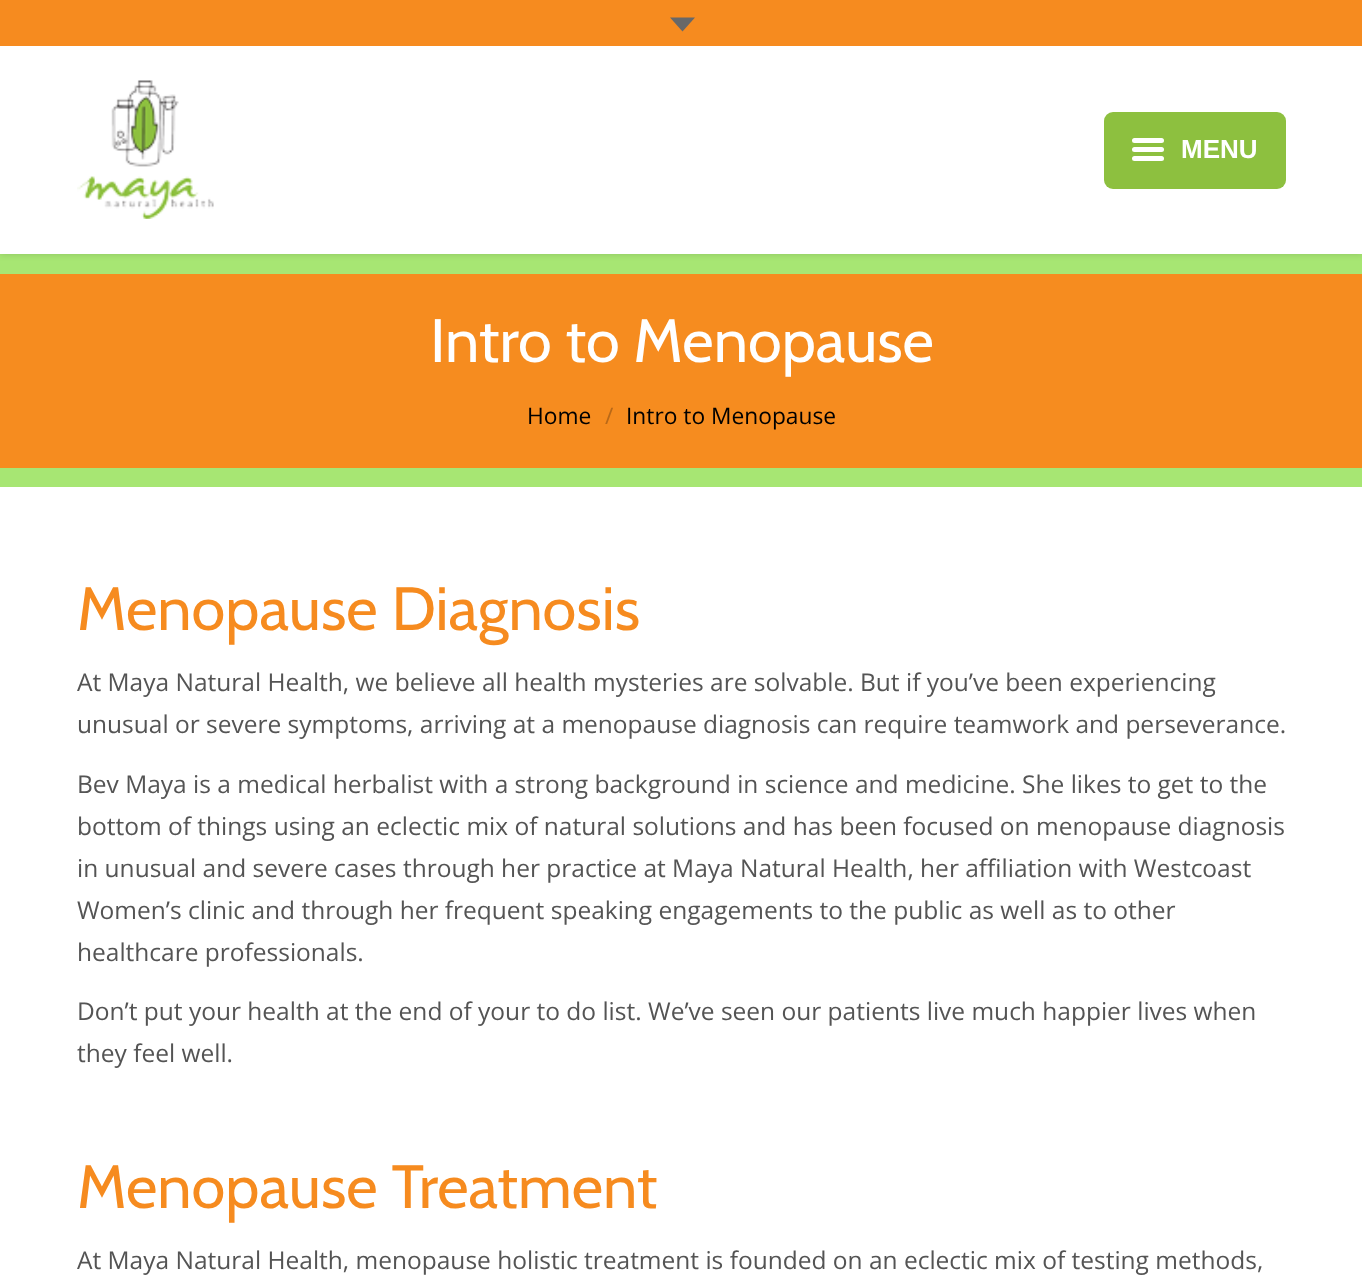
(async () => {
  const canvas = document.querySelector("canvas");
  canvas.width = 1362;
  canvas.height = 1288;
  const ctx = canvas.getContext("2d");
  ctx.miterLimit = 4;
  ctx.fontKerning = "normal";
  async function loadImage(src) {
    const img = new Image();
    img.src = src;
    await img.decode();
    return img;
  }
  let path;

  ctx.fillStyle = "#ffffff";
  ctx.fillRect(0, 0, 1362, 1288);
  ctx.fillStyle = "#a7e673";
  ctx.fillRect(0, 254, 1362, 233);
  ctx.fillStyle = "rgba(0, 0, 0, 0.15)";
  ctx.filter = "blur(3.5px)";
  ctx.beginPath();
  ctx.rect(0, -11, 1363, 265);
  ctx.fill();
  ctx.filter = "none";
  ctx.fillStyle = "#ffffff";
  ctx.fillRect(0, 46, 1362, 208);
  ctx.fillStyle = "#f68b1f";
  ctx.fillRect(0, 0, 1362, 46);
  ctx.fillStyle = "#686868";
  path = new Path2D("M670 17.5H695L682.5 31.5Z");
  ctx.fill(path);
  ctx.drawImage(await loadImage("img/1.png"), 77, 80, 137, 139);
  ctx.fillStyle = "#8dc03f";
  ctx.beginPath();
  ctx.roundRect(1104, 112, 182, 77, 9);
  ctx.fill();
  ctx.fillStyle = "#ffffff";
  ctx.beginPath();
  ctx.roundRect(1132, 147, 32, 5, 2.5);
  ctx.fill();
  ctx.beginPath();
  ctx.roundRect(1132, 138, 32, 5, 2.5);
  ctx.fill();
  ctx.beginPath();
  ctx.roundRect(1132, 156, 32, 5, 2.5);
  ctx.fill();
  ctx.fillStyle = "#f68c1f";
  ctx.fillRect(0, 274, 1362, 194);
  ctx.font = "bold 26px Liberation Sans";
  ctx.fillStyle = "#ffffff";
  ctx.fillText("MENU", 1181, 158);
  ctx.font = "61.25px Cabin";
  ctx.fillText("Intro to Menopause", 430, 362);
  ctx.font = "22.75px Open Sans";
  ctx.fillStyle = "#000000";
  ctx.fillText("Home", 527, 424);
  ctx.fillStyle = "#b96918";
  ctx.fillText("/", 605, 424);
  ctx.fillStyle = "#000000";
  ctx.fillText("Intro to Menopause", 626, 424);
  ctx.font = "61.25px Cabin";
  ctx.fillStyle = "#f68b1f";
  ctx.fillText("Menopause Diagnosis", 77, 630);
  ctx.font = "24.5px Open Sans";
  ctx.fillStyle = "#545454";
  for (const [text, x, y] of [
    ["At Maya Natural Health, we believe all health mysteries are solvable. But if you’ve been experiencing", 77, 691],
    ["unusual or severe symptoms, arriving at a menopause diagnosis can require teamwork and perseverance.", 77, 733],
    ["Bev Maya is a medical herbalist with a strong background in science and medicine. She likes to get to the", 77, 793],
    ["bottom of things using an eclectic mix of natural solutions and has been focused on menopause diagnosis", 77, 835],
    ["in unusual and severe cases through her practice at Maya Natural Health, her affiliation with Westcoast", 77, 877],
    ["Women’s clinic and through her frequent speaking engagements to the public as well as to other", 77, 919],
    ["healthcare professionals.", 77, 961],
    ["Don’t put your health at the end of your to do list. We’ve seen our patients live much happier lives when", 77, 1020],
    ["they feel well.", 77, 1062],
  ]) {
    ctx.fillText(text, x, y);
  }
  ctx.font = "61.25px Cabin";
  ctx.fillStyle = "#f68b1f";
  ctx.fillText("Menopause Treatment", 77, 1208);
  ctx.font = "24.5px Open Sans";
  ctx.fillStyle = "#545454";
  ctx.fillText("At Maya Natural Health, menopause holistic treatment is founded on an eclectic mix of testing methods,", 77, 1269);
})();
